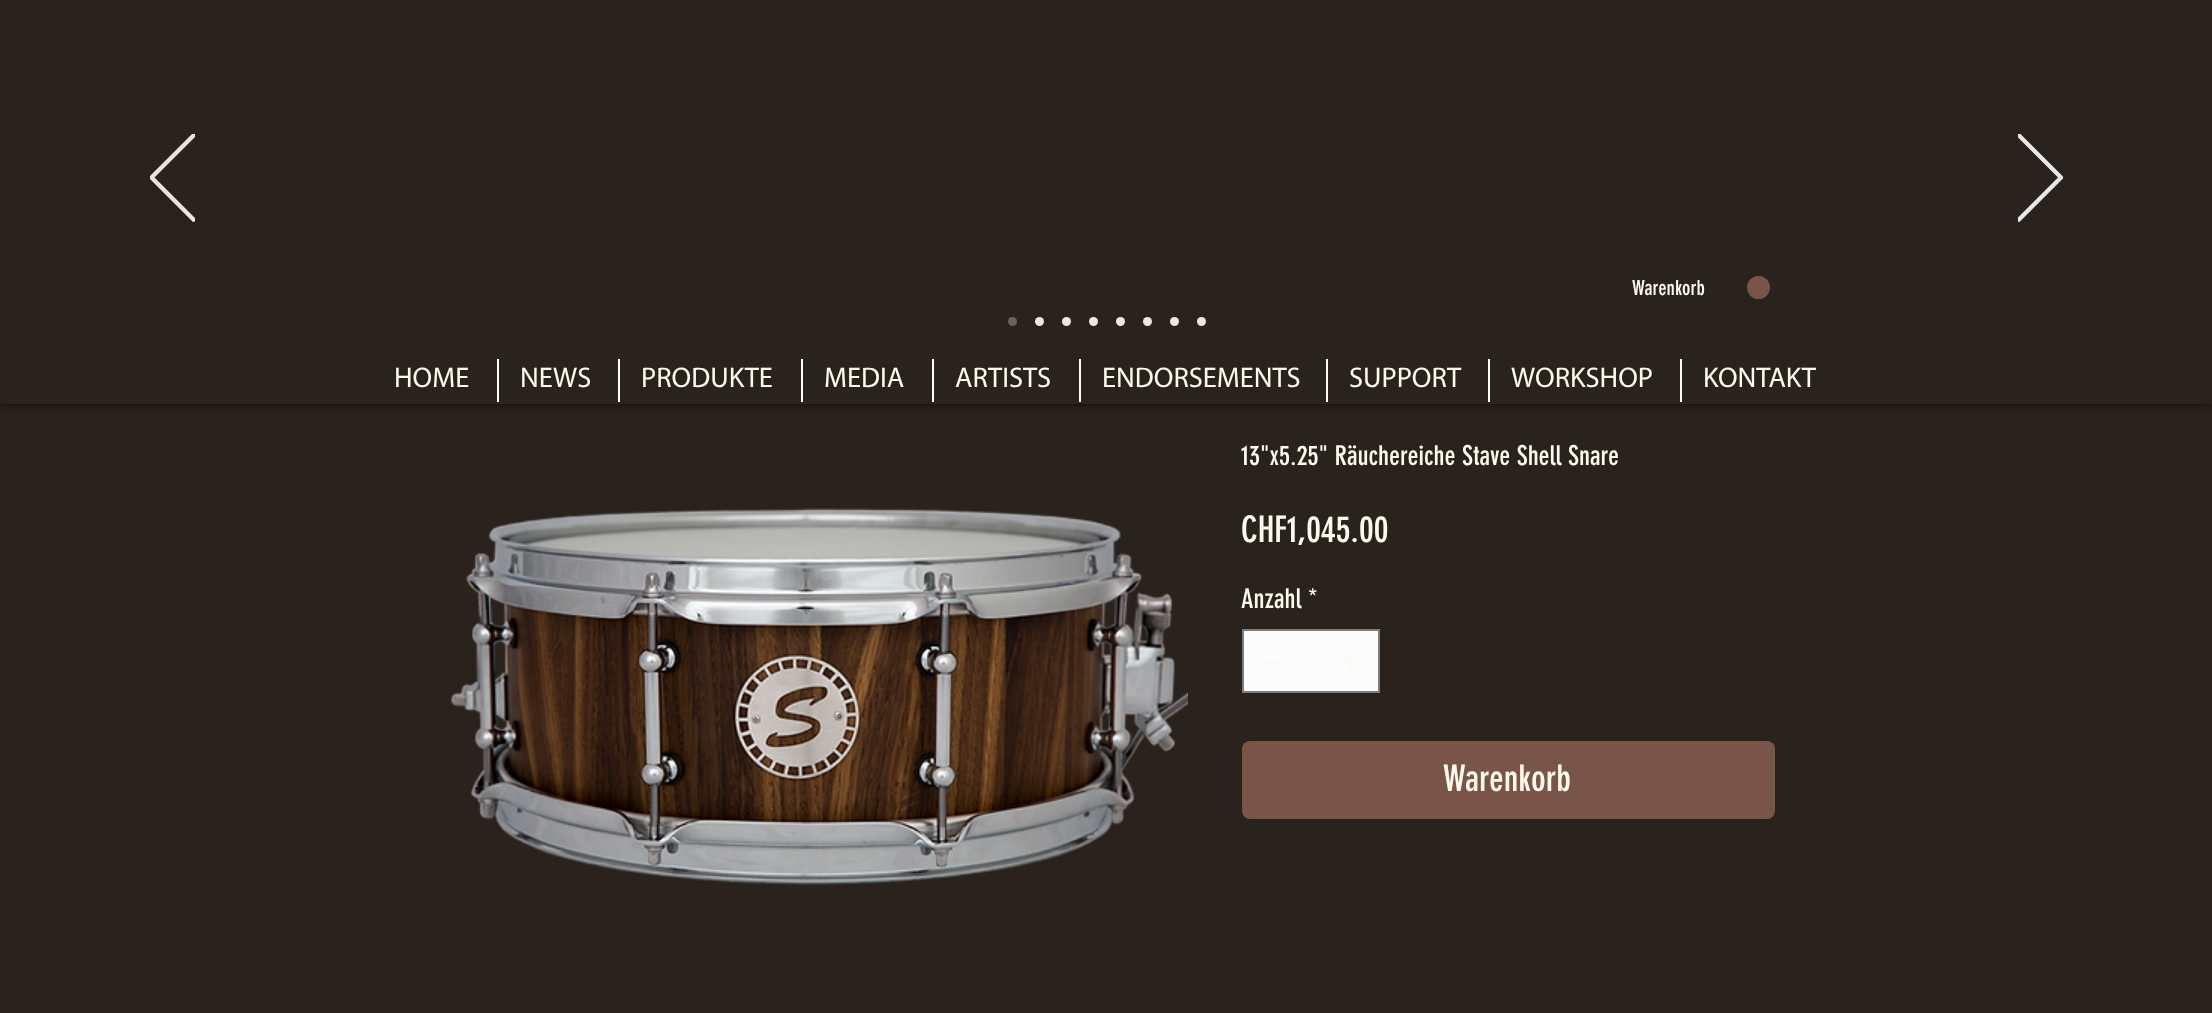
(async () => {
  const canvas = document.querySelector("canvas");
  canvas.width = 2212;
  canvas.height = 1013;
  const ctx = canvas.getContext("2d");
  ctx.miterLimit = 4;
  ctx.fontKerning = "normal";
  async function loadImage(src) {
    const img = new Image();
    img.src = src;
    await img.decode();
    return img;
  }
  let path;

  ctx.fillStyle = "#2a231d";
  ctx.fillRect(0, 0, 2212, 1013);
  ctx.save();
  path = new Path2D("M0 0H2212V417H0ZM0 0H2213V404H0Z");
  ctx.clip(path, "evenodd");
  ctx.fillStyle = "rgba(0, 0, 0, 0.7)";
  ctx.filter = "blur(4px)";
  ctx.beginPath();
  ctx.rect(0, 0, 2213, 404);
  ctx.fill();
  ctx.filter = "none";
  ctx.restore();
  ctx.save();
  ctx.beginPath();
  ctx.rect(150, 134, 45, 88);
  ctx.clip();
  path = new Path2D("M193.5 221L150 177.5L193.5 134L195 135.5L153 177.5L195 219.5Z");
  ctx.strokeStyle = "#e8e8e8";
  ctx.lineWidth = 2.1;
  ctx.stroke(path);
  ctx.restore();
  ctx.save();
  ctx.beginPath();
  ctx.rect(2018, 134, 45, 88);
  ctx.clip();
  path = new Path2D("M2019 221L2062.5 177.5L2019 134L2017.5 135.5L2059.5 177.5L2017.5 219.5Z");
  ctx.strokeStyle = "#e8e8e8";
  ctx.lineWidth = 2.1;
  ctx.stroke(path);
  ctx.restore();
  ctx.fillStyle = "#696460";
  ctx.beginPath();
  ctx.arc(1012.5, 321.5, 4.5, 0, Math.PI * 2);
  ctx.fill();
  ctx.fillStyle = "#e8e8e8";
  ctx.beginPath();
  ctx.arc(1039.5, 321.5, 4.5, 0, Math.PI * 2);
  ctx.fill();
  ctx.beginPath();
  ctx.arc(1066.5, 321.5, 4.5, 0, Math.PI * 2);
  ctx.fill();
  ctx.beginPath();
  ctx.arc(1093.5, 321.5, 4.5, 0, Math.PI * 2);
  ctx.fill();
  ctx.beginPath();
  ctx.arc(1120.5, 321.5, 4.5, 0, Math.PI * 2);
  ctx.fill();
  ctx.beginPath();
  ctx.arc(1147.5, 321.5, 4.5, 0, Math.PI * 2);
  ctx.fill();
  ctx.beginPath();
  ctx.arc(1174.5, 321.5, 4.5, 0, Math.PI * 2);
  ctx.fill();
  ctx.beginPath();
  ctx.arc(1201.5, 321.5, 4.5, 0, Math.PI * 2);
  ctx.fill();
  ctx.fillStyle = "#795549";
  ctx.beginPath();
  ctx.arc(1758.5, 287.5, 11.5, 0, Math.PI * 2);
  ctx.fill();
  for (const [x, y, w, h, color] of [
    [497, 359, 2, 43, "#fcfcfc"],
    [618, 359, 2, 43, "#fcfcfc"],
    [801, 359, 2, 43, "#fcfcfc"],
    [932, 359, 2, 43, "#fcfcfc"],
    [1079, 359, 2, 43, "#fcfcfc"],
    [1326, 359, 2, 43, "#fcfcfc"],
    [1488, 359, 2, 43, "#fcfcfc"],
    [1680, 359, 2, 43, "#fcfcfc"],
  ]) {
    ctx.fillStyle = color;
    ctx.fillRect(x, y, w, h);
  }
  ctx.drawImage(await loadImage("img/1.png"), 450, 508, 738, 378);
  ctx.beginPath();
  ctx.rect(1243, 630, 136, 62);
  ctx.fill();
  ctx.strokeStyle = "#7c7c7c";
  ctx.lineWidth = 2;
  ctx.stroke();
  ctx.fillStyle = "#fff8ec";
  ctx.fillRect(1261, 661, 25, 2);
  ctx.drawImage(await loadImage("img/2.png"), 1337, 649, 26, 25);
  ctx.fillStyle = "#795549";
  ctx.beginPath();
  ctx.roundRect(1242, 741, 533, 78, 8);
  ctx.fill();
  ctx.font = "20.5px 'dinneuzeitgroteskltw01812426'";
  ctx.fillStyle = "#fff8ec";
  ctx.fillText("Warenkorb", 1632, 295);
  ctx.font = "28.5px Myriad";
  for (const [text, x, y] of [
    ["HOME", 394, 387],
    ["NEWS", 520, 387],
    ["PRODUKTE", 641, 387],
    ["MEDIA", 824, 387],
    ["ARTISTS", 955, 387],
    ["ENDORSEMENTS", 1102, 387],
    ["SUPPORT", 1349, 387],
    ["WORKSHOP", 1511, 387],
    ["KONTAKT", 1703, 387],
  ]) {
    ctx.fillText(text, x, y);
  }
  ctx.font = "27px 'dinneuzeitgroteskltw01812426'";
  ctx.fillText("13\"x5.25\" Räuchereiche Stave Shell Snare", 1241, 465);
  ctx.font = "36px 'dinneuzeitgroteskltw01812426'";
  ctx.fillText("CHF1,045.00", 1241, 542);
  ctx.font = "27px 'dinneuzeitgroteskltw01812426'";
  ctx.fillText("Anzahl", 1241, 608);
  ctx.fillText("*", 1308, 608);
  ctx.font = "36px 'dinneuzeitgroteskltw01812426'";
  ctx.fillText("Warenkorb", 1443, 791);
})();
